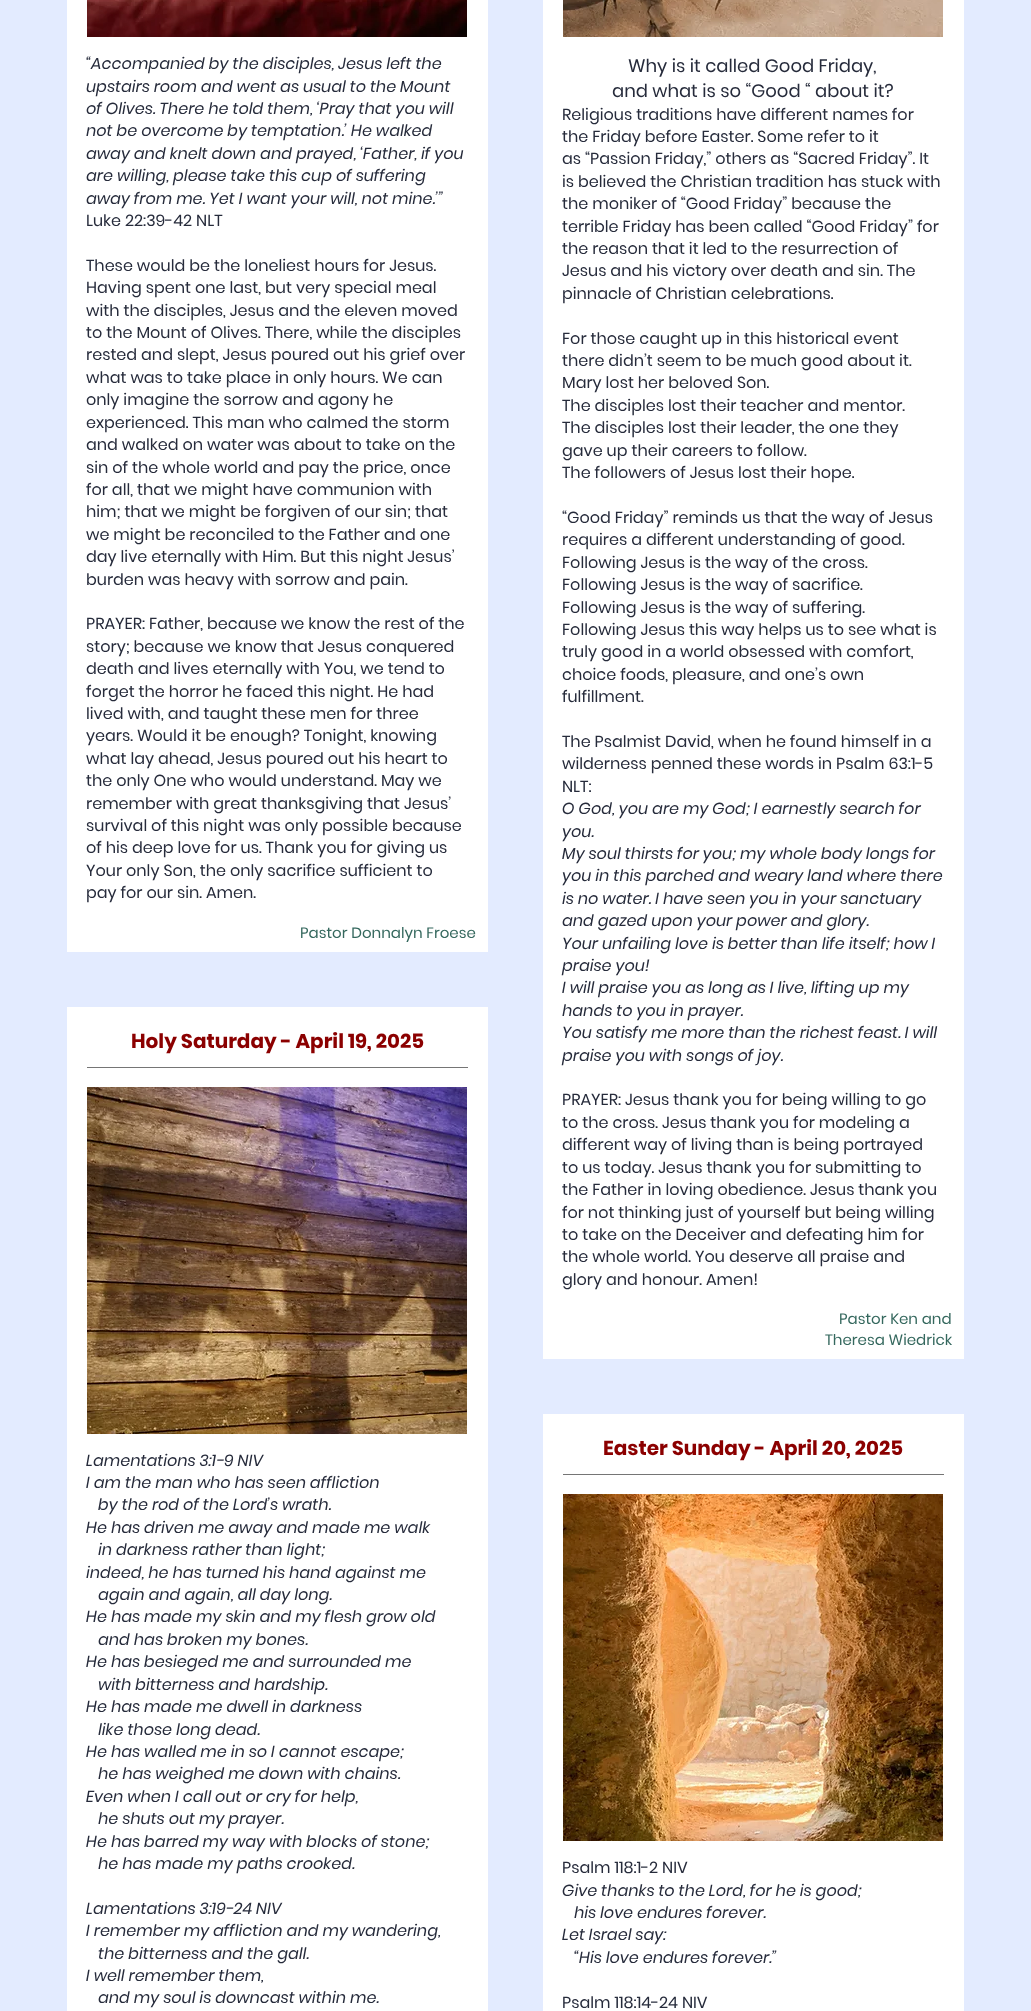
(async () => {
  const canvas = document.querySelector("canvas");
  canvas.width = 1031;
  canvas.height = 2011;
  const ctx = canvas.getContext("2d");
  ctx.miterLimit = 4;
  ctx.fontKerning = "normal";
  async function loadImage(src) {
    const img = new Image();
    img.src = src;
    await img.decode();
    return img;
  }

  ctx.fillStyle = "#e3ebff";
  ctx.fillRect(0, 0, 1031, 2011);
  ctx.fillStyle = "#ffffff";
  ctx.fillRect(67, 0, 421, 952);
  ctx.drawImage(await loadImage("img/1.png"), 87, 0, 380, 37);
  ctx.fillRect(67, 1007, 421, 1004);
  ctx.fillStyle = "#757575";
  ctx.fillRect(87, 1067, 381, 1);
  ctx.drawImage(await loadImage("img/2.png"), 87, 1087, 380, 347);
  ctx.fillStyle = "#ffffff";
  ctx.fillRect(543, 0, 421, 1359);
  ctx.drawImage(await loadImage("img/3.png"), 563, 0, 380, 37);
  ctx.fillRect(543, 1414, 421, 597);
  ctx.fillStyle = "#757575";
  ctx.fillRect(563, 1474, 381, 1);
  ctx.drawImage(await loadImage("img/4.png"), 563, 1494, 380, 347);
  ctx.font = "italic 16px Poppins";
  ctx.fillStyle = "#262b3b";
  for (const [text, x, y] of [
    ["“Accompanied by the disciples, Jesus left the", 86, 69],
    ["upstairs room and went as usual to the Mount", 86, 92],
    ["of Olives. There he told them, ‘Pray that you will", 86, 114],
    ["not be overcome by temptation.’ He walked", 86, 136],
    ["away and knelt down and prayed, ‘Father, if you", 86, 159],
    ["are willing, please take this cup of suffering", 86, 181],
    ["away from me. Yet I want your will, not mine.’”", 86, 204],
  ]) {
    ctx.fillText(text, x, y);
  }
  ctx.font = "16px Poppins";
  for (const [text, x, y] of [
    ["Luke 22:39-42 NLT", 86, 226],
    ["These would be the loneliest hours for Jesus.", 86, 271],
    ["Having spent one last, but very special meal", 86, 293],
    ["with the disciples, Jesus and the eleven moved", 86, 316],
    ["to the Mount of Olives. There, while the disciples", 86, 338],
    ["rested and slept, Jesus poured out his grief over", 86, 360],
    ["what was to take place in only hours. We can", 86, 383],
    ["only imagine the sorrow and agony he", 86, 405],
    ["experienced. This man who calmed the storm", 86, 428],
    ["and walked on water was about to take on the", 86, 450],
    ["sin of the whole world and pay the price, once", 86, 473],
    ["for all, that we might have communion with", 86, 495],
    ["him; that we might be forgiven of our sin; that", 86, 517],
    ["we might be reconciled to the Father and one", 86, 540],
    ["day live eternally with Him. But this night Jesus’", 86, 562],
    ["burden was heavy with sorrow and pain.", 86, 585],
    ["PRAYER: Father, because we know the rest of the", 86, 629],
    ["story; because we know that Jesus conquered", 86, 652],
    ["death and lives eternally with You, we tend to", 86, 674],
    ["forget the horror he faced this night. He had", 86, 697],
    ["lived with, and taught these men for three", 86, 719],
    ["years. Would it be enough? Tonight, knowing", 86, 741],
    ["what lay ahead, Jesus poured out his heart to", 86, 764],
    ["the only One who would understand. May we", 86, 786],
    ["remember with great thanksgiving that Jesus’", 86, 809],
    ["survival of this night was only possible because", 86, 831],
    ["of his deep love for us. Thank you for giving us", 86, 853],
    ["Your only Son, the only sacrifice sufficient to", 86, 876],
    ["pay for our sin. Amen.", 86, 898],
  ]) {
    ctx.fillText(text, x, y);
  }
  ctx.font = "15px Poppins";
  ctx.fillStyle = "#35685e";
  ctx.fillText("Pastor Donnalyn Froese", 300, 938);
  ctx.font = "bold 20px Poppins";
  ctx.fillStyle = "#8b0000";
  ctx.fillText("Holy Saturday - April 19, 2025", 131, 1048);
  ctx.font = "italic 16px Poppins";
  ctx.fillStyle = "#262b3b";
  for (const [text, x, y] of [
    ["Lamentations 3:1-9 NIV", 86, 1466],
    ["I am the man who has seen affliction", 86, 1488],
    ["by the rod of the Lord’s wrath.", 98, 1510],
    ["He has driven me away and made me walk", 86, 1533],
    ["in darkness rather than light;", 98, 1555],
    ["indeed, he has turned his hand against me", 86, 1578],
    ["again and again, all day long.", 98, 1600],
    ["He has made my skin and my flesh grow old", 86, 1622],
    ["and has broken my bones.", 98, 1645],
    ["He has besieged me and surrounded me", 86, 1667],
    ["with bitterness and hardship.", 98, 1690],
    ["He has made me dwell in darkness", 86, 1712],
    ["like those long dead.", 98, 1735],
    ["He has walled me in so I cannot escape;", 86, 1757],
    ["he has weighed me down with chains.", 98, 1779],
    ["Even when I call out or cry for help,", 86, 1802],
    ["he shuts out my prayer.", 98, 1824],
    ["He has barred my way with blocks of stone;", 86, 1847],
    ["he has made my paths crooked.", 98, 1869],
    ["Lamentations 3:19-24 NIV", 86, 1914],
    ["I remember my affliction and my wandering,", 86, 1936],
    ["the bitterness and the gall.", 98, 1959],
    ["I well remember them,", 86, 1981],
    ["and my soul is downcast within me.", 98, 2003],
  ]) {
    ctx.fillText(text, x, y);
  }
  ctx.font = "18px Poppins";
  ctx.fillText("Why is it called Good Friday,", 628, 72);
  ctx.fillText("and what is so “Good “ about it?", 612, 97);
  ctx.font = "16px Poppins";
  for (const [text, x, y] of [
    ["Religious traditions have different names for", 562, 120],
    ["the Friday before Easter. Some refer to it", 562, 142],
    ["as “Passion Friday,” others as “Sacred Friday”. It", 562, 164],
    ["is believed the Christian tradition has stuck with", 562, 187],
    ["the moniker of “Good Friday” because the", 562, 209],
    ["terrible Friday has been called “Good Friday” for", 562, 232],
    ["the reason that it led to the resurrection of", 562, 254],
    ["Jesus and his victory over death and sin. The", 562, 276],
    ["pinnacle of Christian celebrations.", 562, 299],
    ["For those caught up in this historical event", 562, 344],
    ["there didn’t seem to be much good about it.", 562, 366],
    ["Mary lost her beloved Son.", 562, 388],
    ["The disciples lost their teacher and mentor.", 562, 411],
    ["The disciples lost their leader, the one they", 562, 433],
    ["gave up their careers to follow.", 562, 456],
    ["The followers of Jesus lost their hope.", 562, 478],
    ["“Good Friday” reminds us that the way of Jesus", 562, 523],
    ["requires a different understanding of good.", 562, 545],
    ["Following Jesus is the way of the cross.", 562, 568],
    ["Following Jesus is the way of sacrifice.", 562, 590],
    ["Following Jesus is the way of suffering.", 562, 613],
    ["Following Jesus this way helps us to see what is", 562, 635],
    ["truly good in a world obsessed with comfort,", 562, 657],
    ["choice foods, pleasure, and one’s own", 562, 680],
    ["fulfillment.", 562, 702],
    ["The Psalmist David, when he found himself in a", 562, 747],
    ["wilderness penned these words in Psalm 63:1-5", 562, 769],
    ["NLT:", 562, 792],
  ]) {
    ctx.fillText(text, x, y);
  }
  ctx.font = "italic 16px Poppins";
  for (const [text, x, y] of [
    ["O God, you are my God; I earnestly search for", 562, 814],
    ["you.", 562, 837],
    ["My soul thirsts for you; my whole body longs for", 562, 859],
    ["you in this parched and weary land where there", 562, 881],
    ["is no water. I have seen you in your sanctuary", 562, 904],
    ["and gazed upon your power and glory.", 562, 926],
    ["Your unfailing love is better than life itself; how I", 562, 949],
    ["praise you!", 562, 971],
    ["I will praise you as long as I live, lifting up my", 562, 993],
    ["hands to you in prayer.", 562, 1016],
    ["You satisfy me more than the richest feast. I will", 562, 1038],
    ["praise you with songs of joy.", 562, 1061],
  ]) {
    ctx.fillText(text, x, y);
  }
  ctx.font = "16px Poppins";
  for (const [text, x, y] of [
    ["PRAYER: Jesus thank you for being willing to go", 562, 1105],
    ["to the cross. Jesus thank you for modeling a", 562, 1128],
    ["different way of living than is being portrayed", 562, 1150],
    ["to us today. Jesus thank you for submitting to", 562, 1173],
    ["the Father in loving obedience. Jesus thank you", 562, 1195],
    ["for not thinking just of yourself but being willing", 562, 1218],
    ["to take on the Deceiver and defeating him for", 562, 1240],
    ["the whole world. You deserve all praise and", 562, 1262],
    ["glory and honour. Amen!", 562, 1285],
  ]) {
    ctx.fillText(text, x, y);
  }
  ctx.font = "15px Poppins";
  ctx.fillStyle = "#35685e";
  ctx.fillText("Pastor Ken and", 839, 1324);
  ctx.fillText("Theresa Wiedrick", 825, 1345);
  ctx.font = "bold 20px Poppins";
  ctx.fillStyle = "#8b0000";
  ctx.fillText("Easter Sunday - April 20, 2025", 603, 1455);
  ctx.font = "16px Poppins";
  ctx.fillStyle = "#262b3b";
  ctx.fillText("Psalm 118:1-2 NIV", 562, 1873);
  ctx.font = "italic 16px Poppins";
  for (const [text, x, y] of [
    ["Give thanks to the Lord, for he is good;", 562, 1896],
    ["his love endures forever.", 574, 1918],
    ["Let Israel say:", 562, 1940],
    ["“His love endures forever.”", 574, 1963],
  ]) {
    ctx.fillText(text, x, y);
  }
  ctx.font = "16px Poppins";
  ctx.fillText("Psalm 118:14-24 NIV", 562, 2008);
})();
